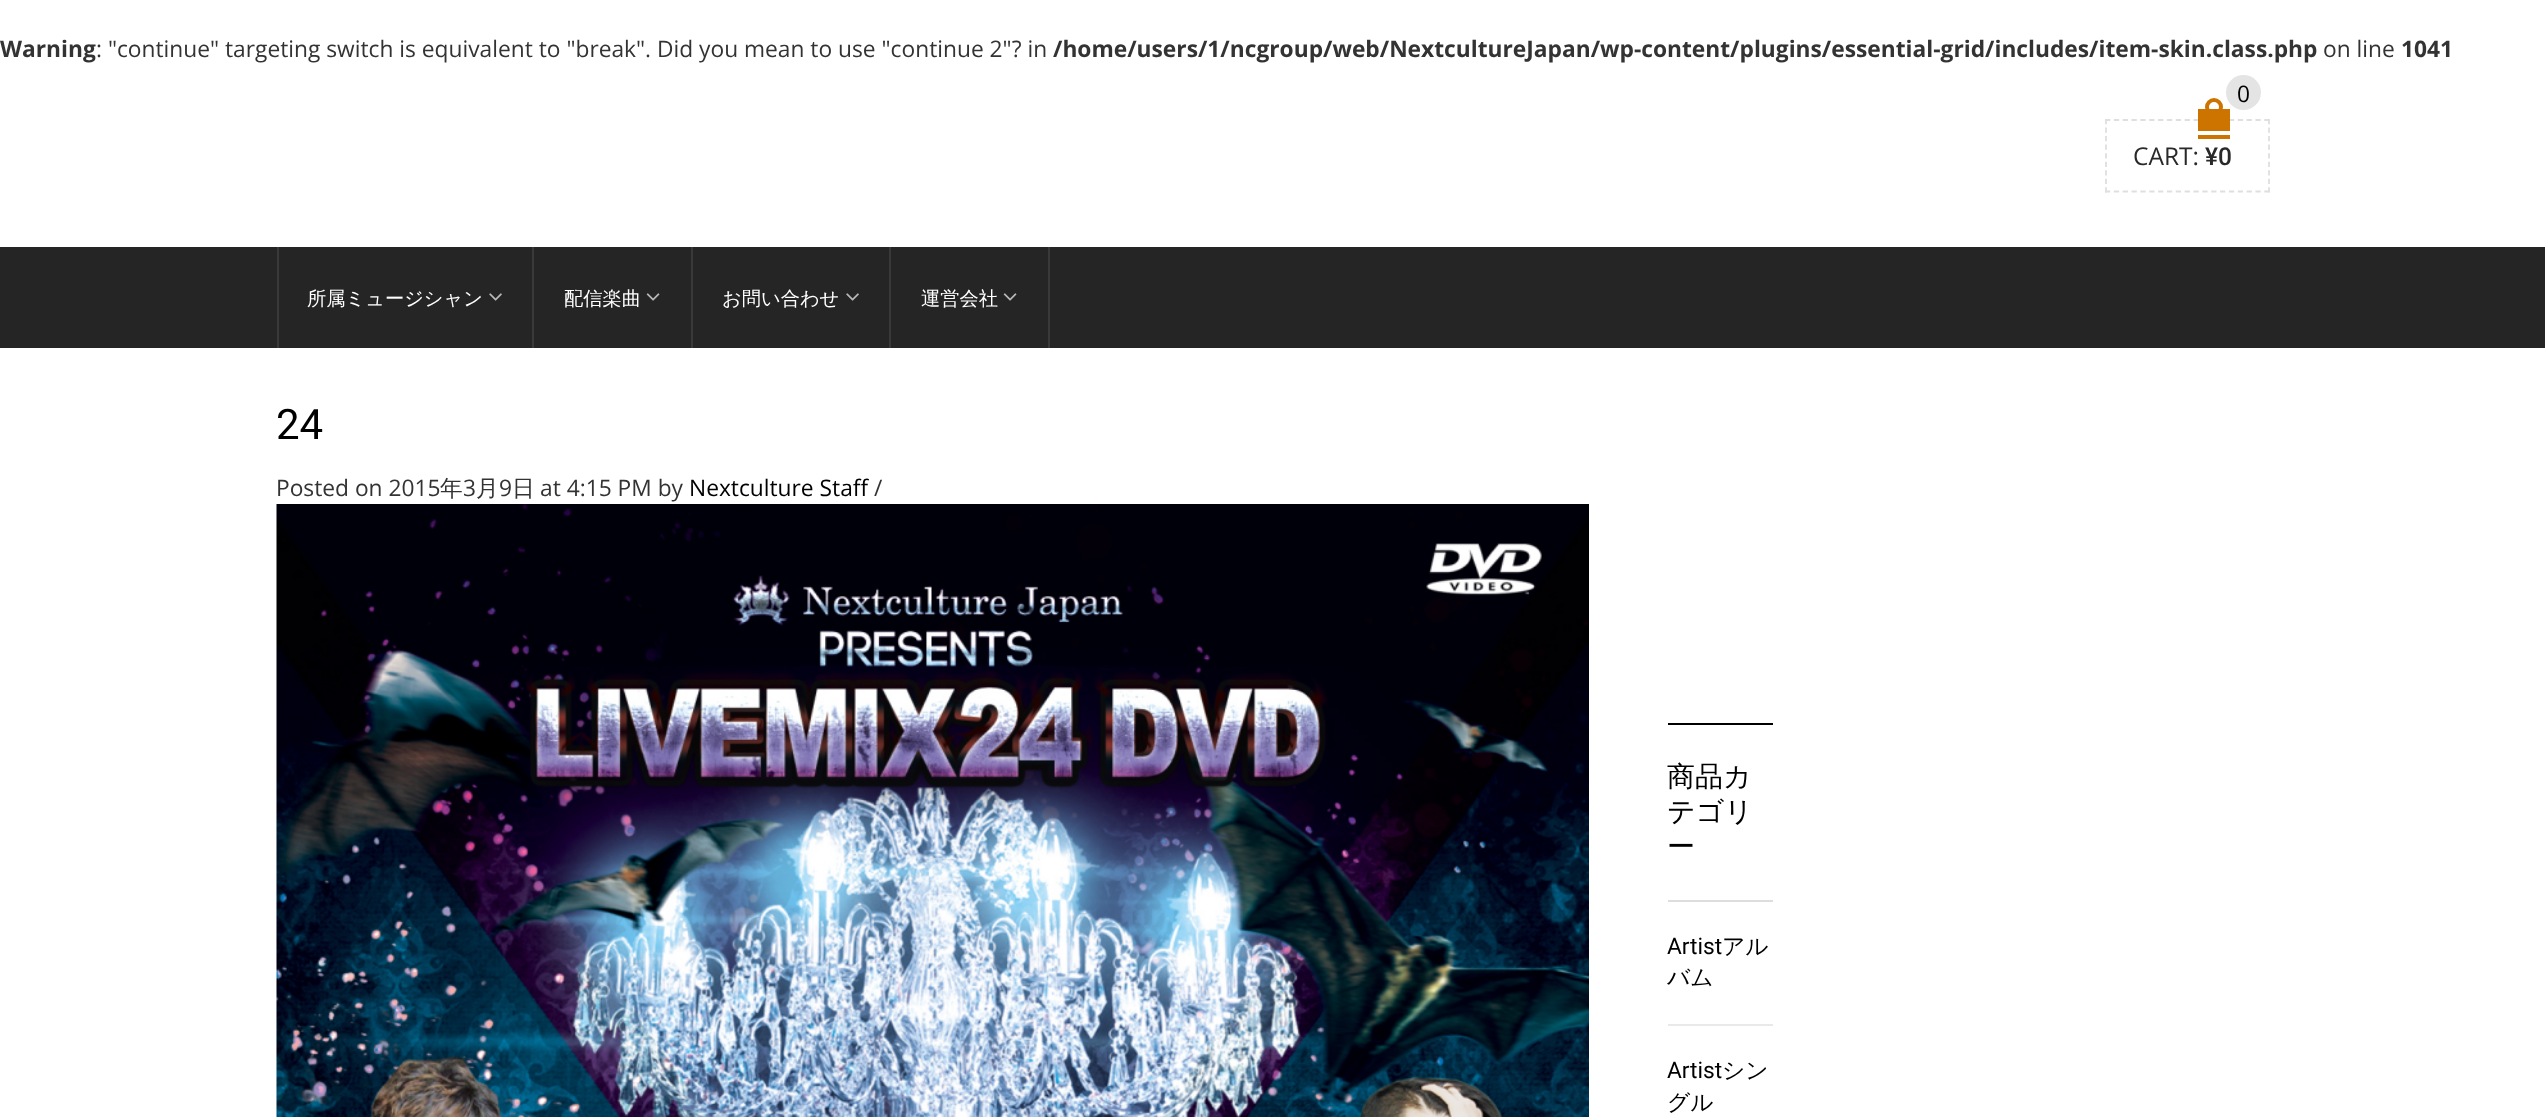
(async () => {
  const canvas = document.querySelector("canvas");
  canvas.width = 2545;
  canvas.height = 1117;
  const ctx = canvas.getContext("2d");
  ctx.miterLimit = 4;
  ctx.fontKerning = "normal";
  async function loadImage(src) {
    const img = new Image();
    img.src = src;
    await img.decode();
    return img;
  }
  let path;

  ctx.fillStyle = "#ffffff";
  ctx.fillRect(0, 0, 2545, 1117);
  path = new Path2D("M2105 120H2270");
  ctx.strokeStyle = "#dfdfdf";
  ctx.lineWidth = 1.8;
  ctx.setLineDash([5.25, 3.6]);
  ctx.stroke(path);
  path = new Path2D("M2269 119V192.5");
  ctx.setLineDash([5.25, 3.29]);
  ctx.stroke(path);
  path = new Path2D("M2105 191.5H2270");
  ctx.setLineDash([5.25, 3.6]);
  ctx.stroke(path);
  path = new Path2D("M2106 119V192.5");
  ctx.setLineDash([5.25, 3.29]);
  ctx.stroke(path);
  ctx.fillStyle = "#cc7300";
  ctx.fillRect(2198, 109, 32, 22);
  ctx.fillStyle = "#e4e4e4";
  ctx.beginPath();
  ctx.arc(2243.5, 92.5, 17.5, 0, Math.PI * 2);
  ctx.fill();
  ctx.beginPath();
  ctx.arc(2214, 107, 7, 0, Math.PI * 2);
  ctx.strokeStyle = "#cc7300";
  ctx.lineWidth = 4;
  ctx.setLineDash([]);
  ctx.stroke();
  for (const [x, y, w, h, color] of [
    [2198, 135, 32, 4, "#cc7300"],
    [0, 247, 2545, 101, "#252525"],
    [277, 247, 2, 101, "#393939"],
  ]) {
    ctx.fillStyle = color;
    ctx.fillRect(x, y, w, h);
  }
  ctx.drawImage(await loadImage("img/1.png"), 489, 293, 13, 8);
  ctx.fillRect(532, 247, 2, 101);
  ctx.drawImage(await loadImage("img/2.png"), 646, 293, 14, 8);
  ctx.fillRect(691, 247, 2, 101);
  ctx.drawImage(await loadImage("img/1.png"), 846, 293, 13, 8);
  ctx.fillRect(1048, 247, 2, 101);
  ctx.fillRect(889, 247, 2, 101);
  ctx.drawImage(await loadImage("img/2.png"), 1003, 293, 14, 8);
  ctx.drawImage(await loadImage("img/3.png"), 276, 504, 1313, 613);
  for (const [x, y, w, h, color] of [
    [1668, 723, 105, 2, "#000000"],
    [1668, 900, 105, 2, "#dddddd"],
    [1668, 1024, 105, 2, "#e9e9e9"],
  ]) {
    ctx.fillStyle = color;
    ctx.fillRect(x, y, w, h);
  }
  ctx.font = "bold 22.75px Open Sans";
  ctx.fillStyle = "#333333";
  ctx.fillText("Warning", 0, 57);
  ctx.font = "22.75px Open Sans";
  ctx.fillText(": \"continue\" targeting switch is equivalent to \"break\". Did you mean to use \"continue 2\"? in", 96, 57);
  ctx.font = "bold 22.75px Open Sans";
  ctx.fillText("/home/users/1/ncgroup/web/NextcultureJapan/wp-content/plugins/essential-grid/includes/item-skin.class.php", 1053, 57);
  ctx.font = "22.75px Open Sans";
  ctx.fillText("on line", 2323, 57);
  ctx.font = "bold 22.75px Open Sans";
  ctx.fillText("1041", 2401, 57);
  ctx.font = "22.75px Open Sans";
  ctx.fillStyle = "#000000";
  ctx.fillText("0", 2237, 102);
  ctx.font = "24.5px Open Sans";
  ctx.fillStyle = "#292929";
  ctx.fillText("CART:", 2133, 165);
  ctx.font = "500 24.5px Roboto";
  ctx.fillText("¥0", 2205, 165);
  ctx.font = "500 19.25px WenQuanYi Zen Hei";
  ctx.fillStyle = "#ffffff";
  for (const [text, x, y] of [
    ["所属ミュージシャン", 307, 305],
    ["配信楽曲", 564, 305],
    ["お問い合わせ", 722, 305],
    ["運営会社", 921, 305],
  ]) {
    ctx.fillText(text, x, y);
  }
  ctx.font = "42px Roboto";
  ctx.fillStyle = "#000000";
  ctx.fillText("24", 276, 439);
  ctx.font = "22.75px Open Sans";
  ctx.fillStyle = "#333333";
  ctx.fillText("Posted on 2015", 276, 496);
  ctx.font = "500 22.75px WenQuanYi Zen Hei";
  ctx.fillText("年", 440, 496);
  ctx.font = "22.75px Open Sans";
  ctx.fillText("3", 463, 496);
  ctx.font = "500 22.75px WenQuanYi Zen Hei";
  ctx.fillText("月", 476, 496);
  ctx.font = "22.75px Open Sans";
  ctx.fillText("9", 499, 496);
  ctx.font = "500 22.75px WenQuanYi Zen Hei";
  ctx.fillText("日", 512, 496);
  ctx.font = "22.75px Open Sans";
  ctx.fillText("at 4:15 PM by", 540, 496);
  ctx.fillStyle = "#000000";
  ctx.fillText("Nextculture Staff", 689, 496);
  ctx.fillStyle = "#333333";
  ctx.fillText("/", 874, 496);
  ctx.font = "500 28px WenQuanYi Zen Hei";
  ctx.fillStyle = "#000000";
  for (const [text, x, y] of [
    ["商品カ", 1667, 786],
    ["テゴリ", 1667, 821],
    ["ー", 1667, 856],
  ]) {
    ctx.fillText(text, x, y);
  }
  ctx.font = "22.75px Roboto";
  ctx.fillText("Artist", 1667, 954);
  ctx.font = "500 22.75px WenQuanYi Zen Hei";
  ctx.fillText("アル", 1722, 954);
  ctx.fillText("バム", 1667, 985);
  ctx.font = "22.75px Roboto";
  ctx.fillText("Artist", 1667, 1078);
  ctx.font = "500 22.75px WenQuanYi Zen Hei";
  ctx.fillText("シン", 1722, 1078);
  ctx.fillText("グル", 1667, 1110);
})();
